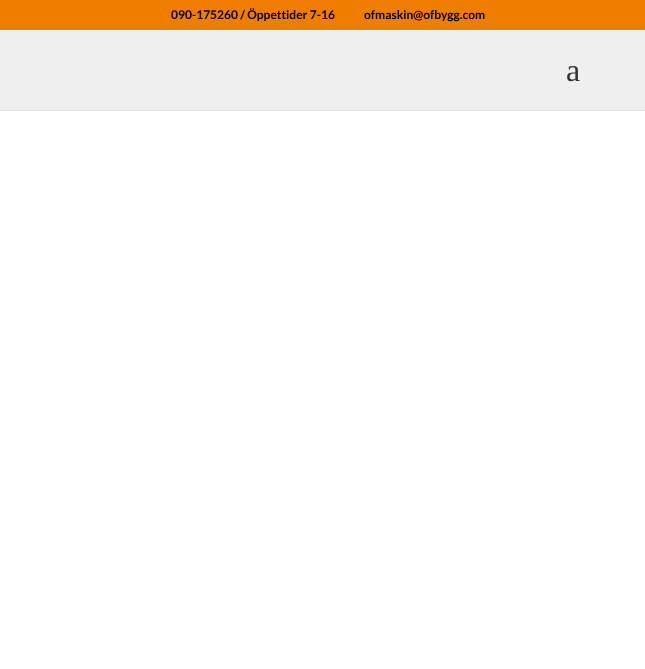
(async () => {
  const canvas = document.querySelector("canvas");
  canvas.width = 645;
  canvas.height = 669;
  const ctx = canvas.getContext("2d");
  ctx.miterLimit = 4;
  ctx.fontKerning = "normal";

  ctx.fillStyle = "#ffffff";
  ctx.fillRect(0, 0, 645, 669);
  for (const [x, y, w, h, color] of [
    [0, 0, 645, 30, "#ef7d00"],
    [0, 110, 645, 1, "#e6e6e6"],
    [0, 30, 645, 80, "#efefef"],
  ]) {
    ctx.fillStyle = color;
    ctx.fillRect(x, y, w, h);
  }
  ctx.font = "bold 12px Lato";
  ctx.fillStyle = "#000000";
  ctx.fillText("090-175260 / Öppettider 7-16", 171, 19);
  ctx.fillText("ofmaskin@ofbygg.com", 364, 19);
  ctx.font = "32px Liberation Serif";
  ctx.fillStyle = "#333333";
  ctx.fillText("a", 566, 81);
})();
